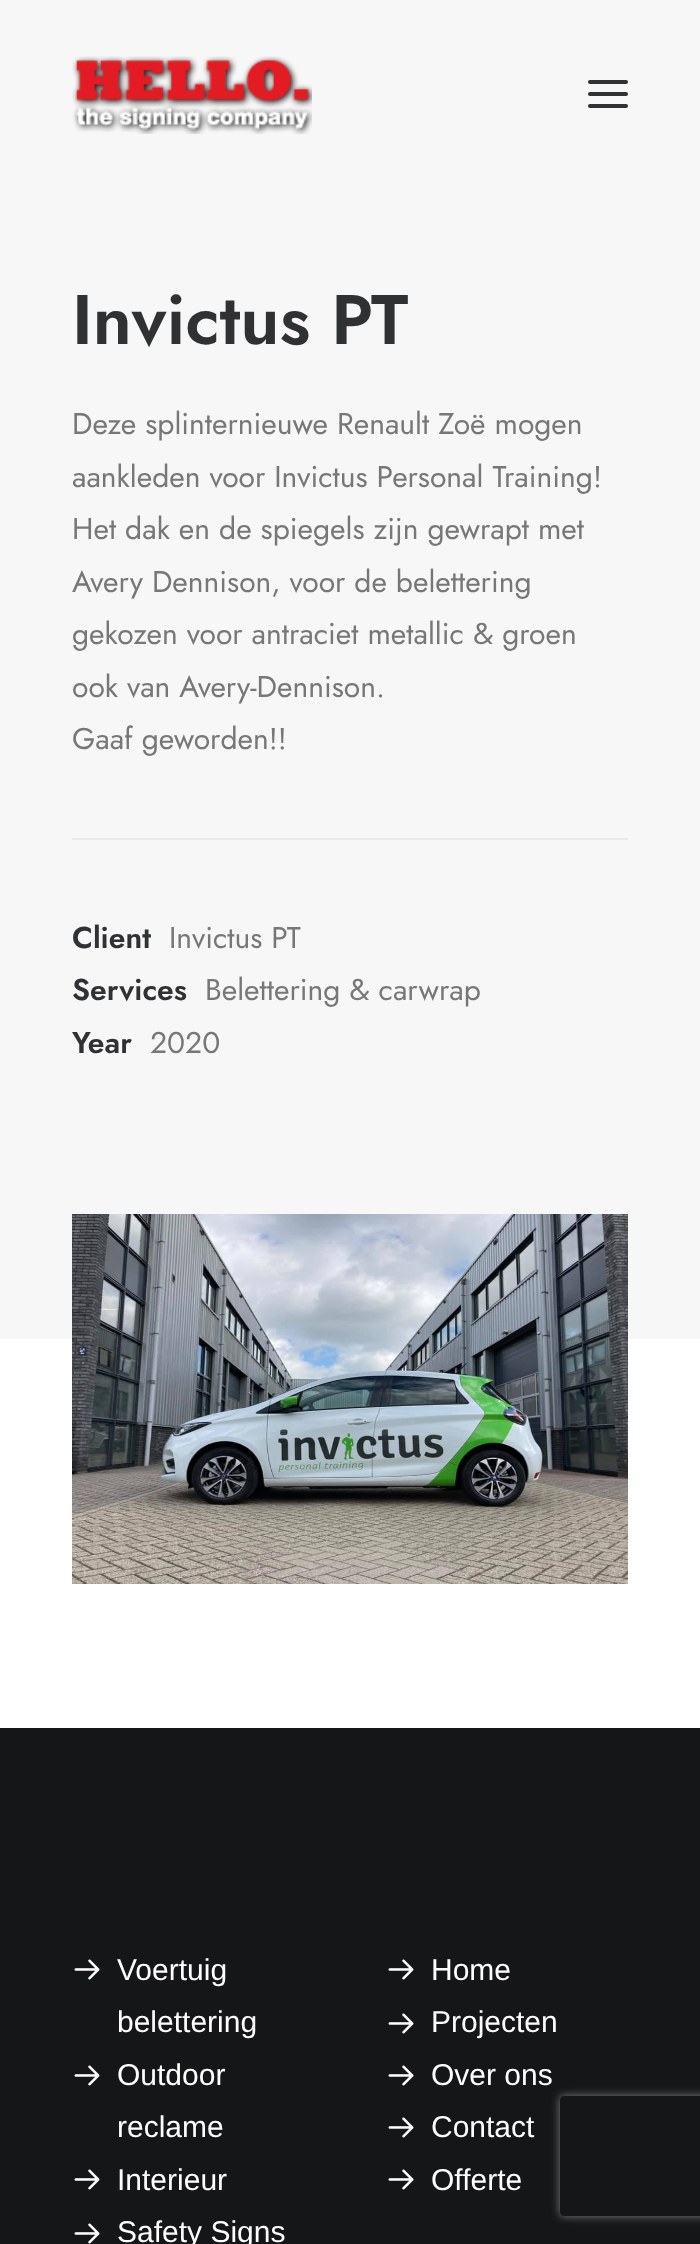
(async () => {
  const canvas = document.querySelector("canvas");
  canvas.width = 700;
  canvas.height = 2244;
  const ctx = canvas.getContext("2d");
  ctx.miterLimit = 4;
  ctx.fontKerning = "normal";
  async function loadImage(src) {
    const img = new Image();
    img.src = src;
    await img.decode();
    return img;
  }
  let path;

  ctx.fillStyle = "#141618";
  ctx.fillRect(0, 0, 700, 2244);
  ctx.fillStyle = "#f7f7f7";
  ctx.fillRect(0, 0, 700, 1339);
  ctx.drawImage(await loadImage("img/1.png"), 72, 56, 240, 78);
  ctx.fillStyle = "#303133";
  ctx.beginPath();
  ctx.roundRect(588, 92, 40, 4, 2);
  ctx.fill();
  ctx.beginPath();
  ctx.roundRect(588, 80, 40, 4, 2);
  ctx.fill();
  ctx.beginPath();
  ctx.roundRect(588, 104, 40, 4, 2);
  ctx.fill();
  ctx.fillStyle = "#eaeaea";
  ctx.fillRect(72, 838, 556, 2);
  ctx.fillStyle = "#ffffff";
  ctx.fillRect(0, 1339, 700, 389);
  ctx.drawImage(await loadImage("img/2.png"), 72, 1214, 556, 370);
  ctx.drawImage(await loadImage("img/3.png"), 74, 1959, 26, 21);
  ctx.drawImage(await loadImage("img/3.png"), 74, 2065, 26, 21);
  ctx.drawImage(await loadImage("img/3.png"), 74, 2169, 26, 21);
  ctx.drawImage(await loadImage("img/3.png"), 74, 2223, 26, 21);
  ctx.drawImage(await loadImage("img/3.png"), 388, 1959, 26, 21);
  ctx.drawImage(await loadImage("img/3.png"), 388, 2013, 26, 21);
  ctx.drawImage(await loadImage("img/3.png"), 388, 2065, 26, 21);
  ctx.drawImage(await loadImage("img/3.png"), 388, 2117, 26, 21);
  ctx.drawImage(await loadImage("img/3.png"), 388, 2169, 26, 21);
  ctx.save();
  path = new Path2D("M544 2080H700V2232H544ZM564 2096H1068C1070 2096 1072 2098 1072 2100V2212C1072 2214 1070 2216 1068 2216H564C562 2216 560 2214 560 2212V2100C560 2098 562 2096 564 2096Z");
  ctx.clip(path, "evenodd");
  ctx.fillStyle = "#808080";
  ctx.filter = "blur(5px)";
  ctx.beginPath();
  ctx.roundRect(560, 2096, 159, 120, 4);
  ctx.fill();
  ctx.filter = "none";
  ctx.restore();
  ctx.font = "600 70px Jost";
  ctx.fillStyle = "#303133";
  ctx.fillText("Invictus PT", 72, 344);
  ctx.font = "30px Jost";
  ctx.fillStyle = "#777777";
  for (const [text, x, y] of [
    ["Deze splinternieuwe Renault Zoë mogen", 72, 434],
    ["aankleden voor Invictus Personal Training!", 72, 487],
    ["Het dak en de spiegels zijn gewrapt met", 72, 539],
    ["Avery Dennison, voor de belettering", 72, 592],
    ["gekozen voor antraciet metallic & groen", 72, 644],
    ["ook van Avery-Dennison.", 72, 697],
    ["Gaaf geworden!!", 72, 749],
  ]) {
    ctx.fillText(text, x, y);
  }
  ctx.font = "600 30px Jost";
  ctx.fillStyle = "#303133";
  ctx.fillText("Client", 72, 948);
  ctx.font = "30px Jost";
  ctx.fillStyle = "#777777";
  ctx.fillText("Invictus PT", 169, 948);
  ctx.font = "600 30px Jost";
  ctx.fillStyle = "#303133";
  ctx.fillText("Services", 72, 1000);
  ctx.font = "30px Jost";
  ctx.fillStyle = "#777777";
  ctx.fillText("Belettering & carwrap", 205, 1000);
  ctx.font = "600 30px Jost";
  ctx.fillStyle = "#303133";
  ctx.fillText("Year", 72, 1053);
  ctx.font = "30px Jost";
  ctx.fillStyle = "#777777";
  ctx.fillText("2020", 150, 1053);
  ctx.font = "30px Liberation Sans";
  ctx.fillStyle = "#ffffff";
  for (const [text, x, y] of [
    ["Voertuig", 117, 1980],
    ["belettering", 117, 2032],
    ["Outdoor", 117, 2085],
    ["reclame", 117, 2137],
    ["Interieur", 117, 2190],
    ["Safety Signs", 117, 2242],
    ["Home", 431, 1980],
    ["Projecten", 431, 2032],
    ["Over ons", 431, 2085],
    ["Contact", 431, 2137],
    ["Offerte", 431, 2190],
  ]) {
    ctx.fillText(text, x, y);
  }
})();
